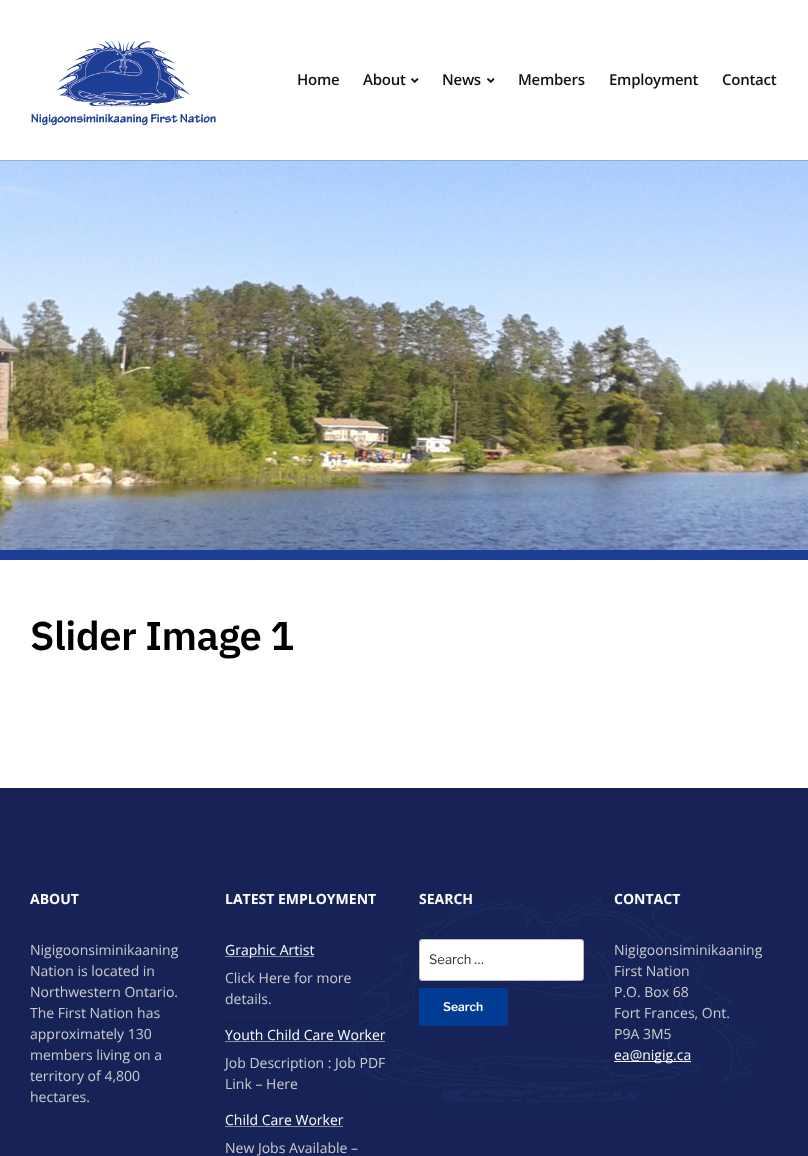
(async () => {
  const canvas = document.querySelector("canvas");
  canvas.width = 808;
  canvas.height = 1156;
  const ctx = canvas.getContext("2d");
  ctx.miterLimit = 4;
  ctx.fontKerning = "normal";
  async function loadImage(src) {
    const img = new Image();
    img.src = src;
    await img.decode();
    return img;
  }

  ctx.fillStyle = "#ffffff";
  ctx.fillRect(0, 0, 808, 1156);
  ctx.drawImage(await loadImage("img/1.png"), 31, 40, 185, 85);
  ctx.drawImage(await loadImage("img/2.png"), 411, 78, 8, 5);
  ctx.drawImage(await loadImage("img/2.png"), 487, 78, 8, 5);
  ctx.drawImage(await loadImage("img/3.png"), 0, 160, 808, 390);
  ctx.fillStyle = "rgba(0, 0, 0, 0.15)";
  ctx.fillRect(0, 160, 808, 1);
  ctx.drawImage(await loadImage("img/4.png"), 0, 788, 808, 368);
  ctx.fillStyle = "rgba(12, 12, 12, 0.05)";
  ctx.filter = "blur(5px)";
  ctx.beginPath();
  ctx.rect(0, 550, 808, 238);
  ctx.fill();
  ctx.filter = "none";
  for (const [x, y, w, h, color] of [
    [0, 560, 808, 228, "#ffffff"],
    [0, 550, 808, 10, "#1c3f95"],
    [225, 1023, 164, 1, "rgba(0, 0, 0, 0.12)"],
    [225, 956, 89, 1, "#8b91ab"],
    [225, 1108, 164, 1, "#141f4d"],
    [225, 1041, 160, 1, "rgba(255, 255, 255, 0.5)"],
    [225, 1126, 118, 1, "#8b91ab"],
  ]) {
    ctx.fillStyle = color;
    ctx.fillRect(x, y, w, h);
  }
  ctx.fillStyle = "#ffffff";
  ctx.beginPath();
  ctx.roundRect(419.5, 939.5, 164, 41, 2.5);
  ctx.fill();
  ctx.strokeStyle = "#bbbbbb";
  ctx.stroke();
  ctx.fillStyle = "#013b93";
  ctx.beginPath();
  ctx.roundRect(419, 988, 89, 38, 2);
  ctx.fill();
  ctx.fillStyle = "#ffffff";
  ctx.fillRect(614, 1061, 77, 1);
  ctx.letterSpacing = "-0.25px";
  ctx.font = "600 15px Open Sans";
  ctx.fillStyle = "#121212";
  for (const [text, x, y] of [
    ["Home", 297, 85],
    ["About", 363, 85],
    ["News", 442, 85],
    ["Members", 518, 85],
    ["Employment", 609, 85],
    ["Contact", 722, 85],
  ]) {
    ctx.fillText(text, x, y);
  }
  ctx.letterSpacing = "-0.5px";
  ctx.font = "600 40px IBM Plex Sans";
  ctx.fillStyle = "#000000";
  ctx.fillText("Slider Image 1", 30, 650);
  ctx.letterSpacing = "0px";
  ctx.font = "bold 14px Open Sans";
  ctx.fillStyle = "#ffffff";
  ctx.fillText("ABOUT", 30, 904);
  ctx.font = "14px Open Sans";
  ctx.fillStyle = "#cccccc";
  for (const [text, x, y] of [
    ["Nigigoonsiminikaaning", 30, 955],
    ["Nation is located in", 30, 976],
    ["Northwestern Ontario.", 30, 997],
    ["The First Nation has", 30, 1018],
    ["approximately 130", 30, 1039],
    ["members living on a", 30, 1060],
    ["territory of 4,800", 30, 1081],
    ["hectares.", 30, 1102],
  ]) {
    ctx.fillText(text, x, y);
  }
  ctx.font = "bold 14px Open Sans";
  ctx.fillStyle = "#ffffff";
  ctx.fillText("LATEST EMPLOYMENT", 225, 904);
  ctx.font = "14px Open Sans";
  ctx.fillText("Graphic Artist", 225, 955);
  ctx.fillStyle = "#cccccc";
  ctx.fillText("Click Here for more", 225, 983);
  ctx.fillText("details.", 225, 1004);
  ctx.fillStyle = "#ffffff";
  ctx.fillText("Youth Child Care Worker", 225, 1040);
  ctx.fillStyle = "#cccccc";
  ctx.fillText("Job Description : Job PDF", 225, 1068);
  ctx.fillText("Link – Here", 225, 1089);
  ctx.fillStyle = "#ffffff";
  ctx.fillText("Child Care Worker", 225, 1125);
  ctx.fillStyle = "#cccccc";
  ctx.fillText("New Jobs Available –", 225, 1153);
  ctx.font = "bold 14px Open Sans";
  ctx.fillStyle = "#ffffff";
  ctx.fillText("SEARCH", 419, 904);
  ctx.font = "13px Libre Franklin";
  ctx.fillStyle = "#333333";
  ctx.fillText("Search …", 429, 964);
  ctx.font = "600 12px Libre Franklin";
  ctx.fillStyle = "#ffffff";
  ctx.fillText("Search", 443, 1011);
  ctx.font = "bold 14px Open Sans";
  ctx.fillText("CONTACT", 614, 904);
  ctx.font = "14px Open Sans";
  ctx.fillStyle = "#cccccc";
  for (const [text, x, y] of [
    ["Nigigoonsiminikaaning", 614, 955],
    ["First Nation", 614, 976],
    ["P.O. Box 68", 614, 997],
    ["Fort Frances, Ont.", 614, 1018],
    ["P9A 3M5", 614, 1039],
  ]) {
    ctx.fillText(text, x, y);
  }
  ctx.fillStyle = "#ffffff";
  ctx.fillText("ea@nigig.ca", 614, 1060);
})();
